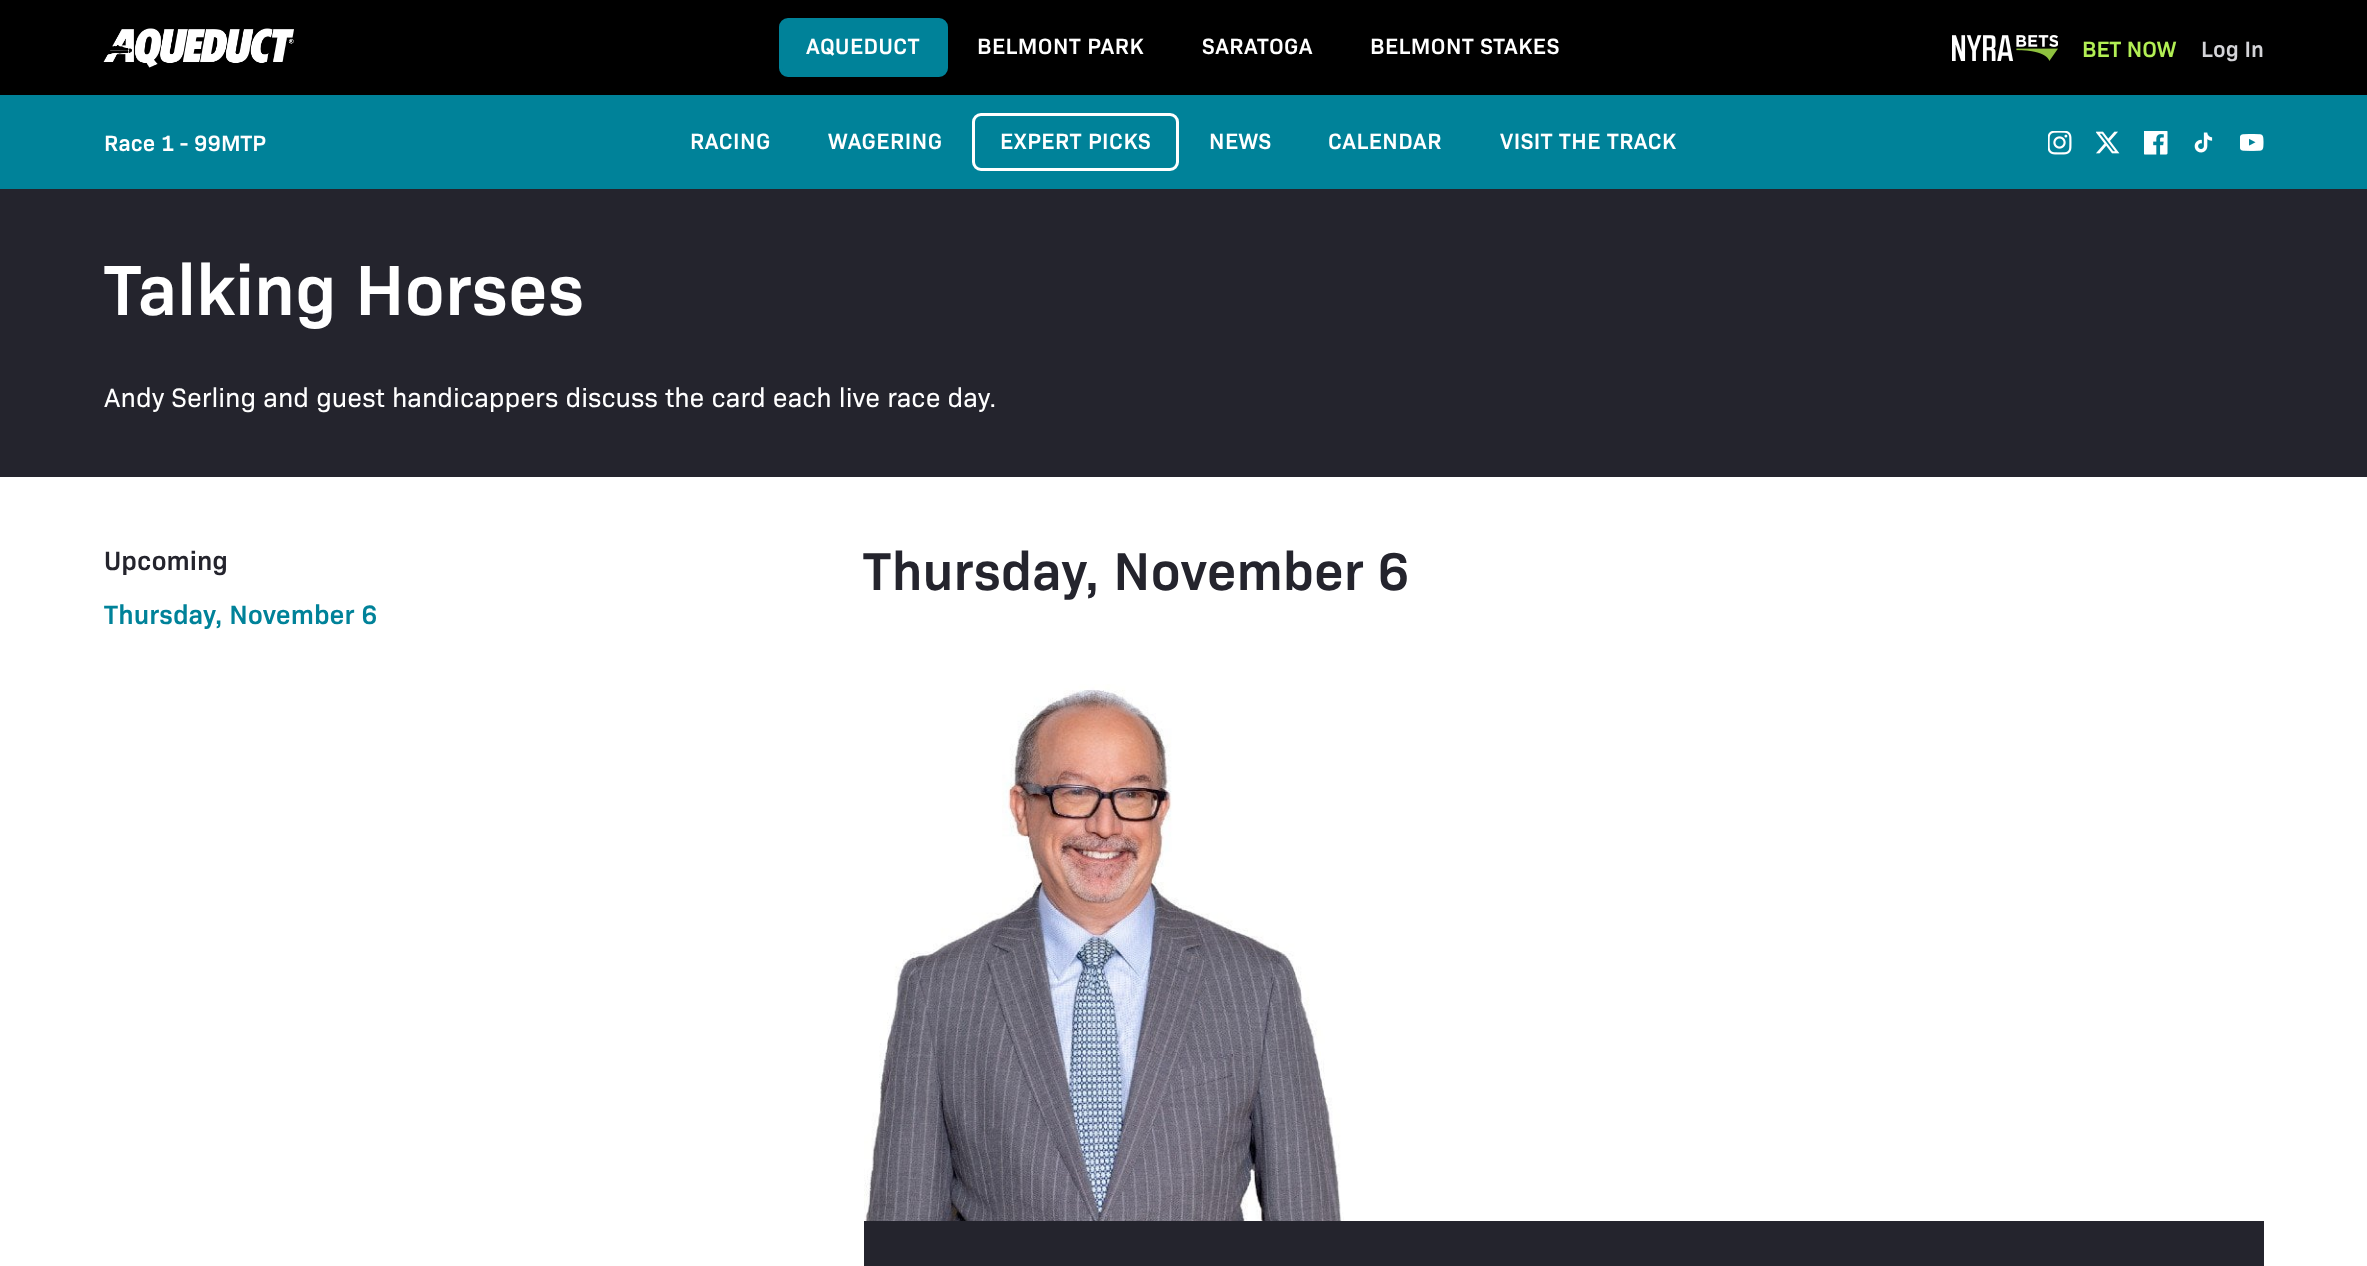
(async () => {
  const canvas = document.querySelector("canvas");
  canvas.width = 2367;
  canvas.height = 1266;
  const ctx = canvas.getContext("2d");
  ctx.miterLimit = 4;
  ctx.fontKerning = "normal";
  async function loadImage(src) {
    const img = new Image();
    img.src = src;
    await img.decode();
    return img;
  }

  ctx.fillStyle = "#ffffff";
  ctx.fillRect(0, 0, 2367, 1266);
  ctx.fillStyle = "#000000";
  ctx.fillRect(0, 0, 2367, 95);
  ctx.drawImage(await loadImage("img/1.png"), 103, 28, 191, 40);
  ctx.fillStyle = "#008299";
  ctx.beginPath();
  ctx.roundRect(780.5, 19.5, 166, 56, 7.5);
  ctx.fill();
  ctx.strokeStyle = "#008299";
  ctx.lineWidth = 3;
  ctx.stroke();
  ctx.drawImage(await loadImage("img/2.png"), 1952, 35, 106, 26);
  ctx.fillRect(0, 95, 2367, 94);
  ctx.beginPath();
  ctx.roundRect(973.5, 114.5, 204, 55, 7.5);
  ctx.strokeStyle = "#ffffff";
  ctx.stroke();
  ctx.drawImage(await loadImage("img/3.png"), 2048, 131, 24, 24);
  ctx.drawImage(await loadImage("img/4.png"), 2096, 131, 24, 23);
  ctx.drawImage(await loadImage("img/5.png"), 2144, 131, 24, 24);
  ctx.drawImage(await loadImage("img/6.png"), 2194, 132, 19, 21);
  ctx.drawImage(await loadImage("img/7.png"), 2240, 134, 24, 17);
  ctx.fillStyle = "#24242d";
  ctx.fillRect(0, 189, 2367, 288);
  ctx.drawImage(await loadImage("img/8.png"), 864, 684, 480, 537);
  ctx.fillRect(864, 1221, 1400, 45);
  ctx.letterSpacing = "0.5px";
  ctx.font = "600 22.5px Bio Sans";
  ctx.fillStyle = "#ffffff";
  for (const [text, x, y] of [
    ["AQUEDUCT", 806, 54],
    ["BELMONT PARK", 977, 54],
    ["SARATOGA", 1202, 54],
    ["BELMONT STAKES", 1370, 54],
  ]) {
    ctx.fillText(text, x, y);
  }
  ctx.letterSpacing = "0px";
  ctx.fillStyle = "#b2ef54";
  ctx.fillText("BET NOW", 2082, 57);
  ctx.fillStyle = "#d4d4d8";
  ctx.fillText("Log In", 2201, 57);
  ctx.fillStyle = "#ffffff";
  ctx.fillText("Race 1 - 99MTP", 104, 151);
  ctx.letterSpacing = "0.5px";
  for (const [text, x, y] of [
    ["RACING", 690, 149],
    ["WAGERING", 828, 149],
    ["EXPERT PICKS", 1000, 149],
    ["NEWS", 1209, 149],
    ["CALENDAR", 1328, 149],
    ["VISIT THE TRACK", 1500, 149],
  ]) {
    ctx.fillText(text, x, y);
  }
  ctx.letterSpacing = "0px";
  ctx.font = "600 72px Bio Sans";
  ctx.fillText("Talking Horses", 104, 315);
  ctx.font = "27px Bio Sans";
  ctx.fillText("Andy Serling and guest handicappers discuss the card each live race day.", 104, 407);
  ctx.font = "600 27px Bio Sans";
  ctx.fillStyle = "#24242d";
  ctx.fillText("Upcoming", 104, 570);
  ctx.fillStyle = "#008299";
  ctx.fillText("Thursday, November 6", 104, 624);
  ctx.font = "600 54px Bio Sans";
  ctx.fillStyle = "#24242d";
  ctx.fillText("Thursday, November 6", 863, 590);
})();
